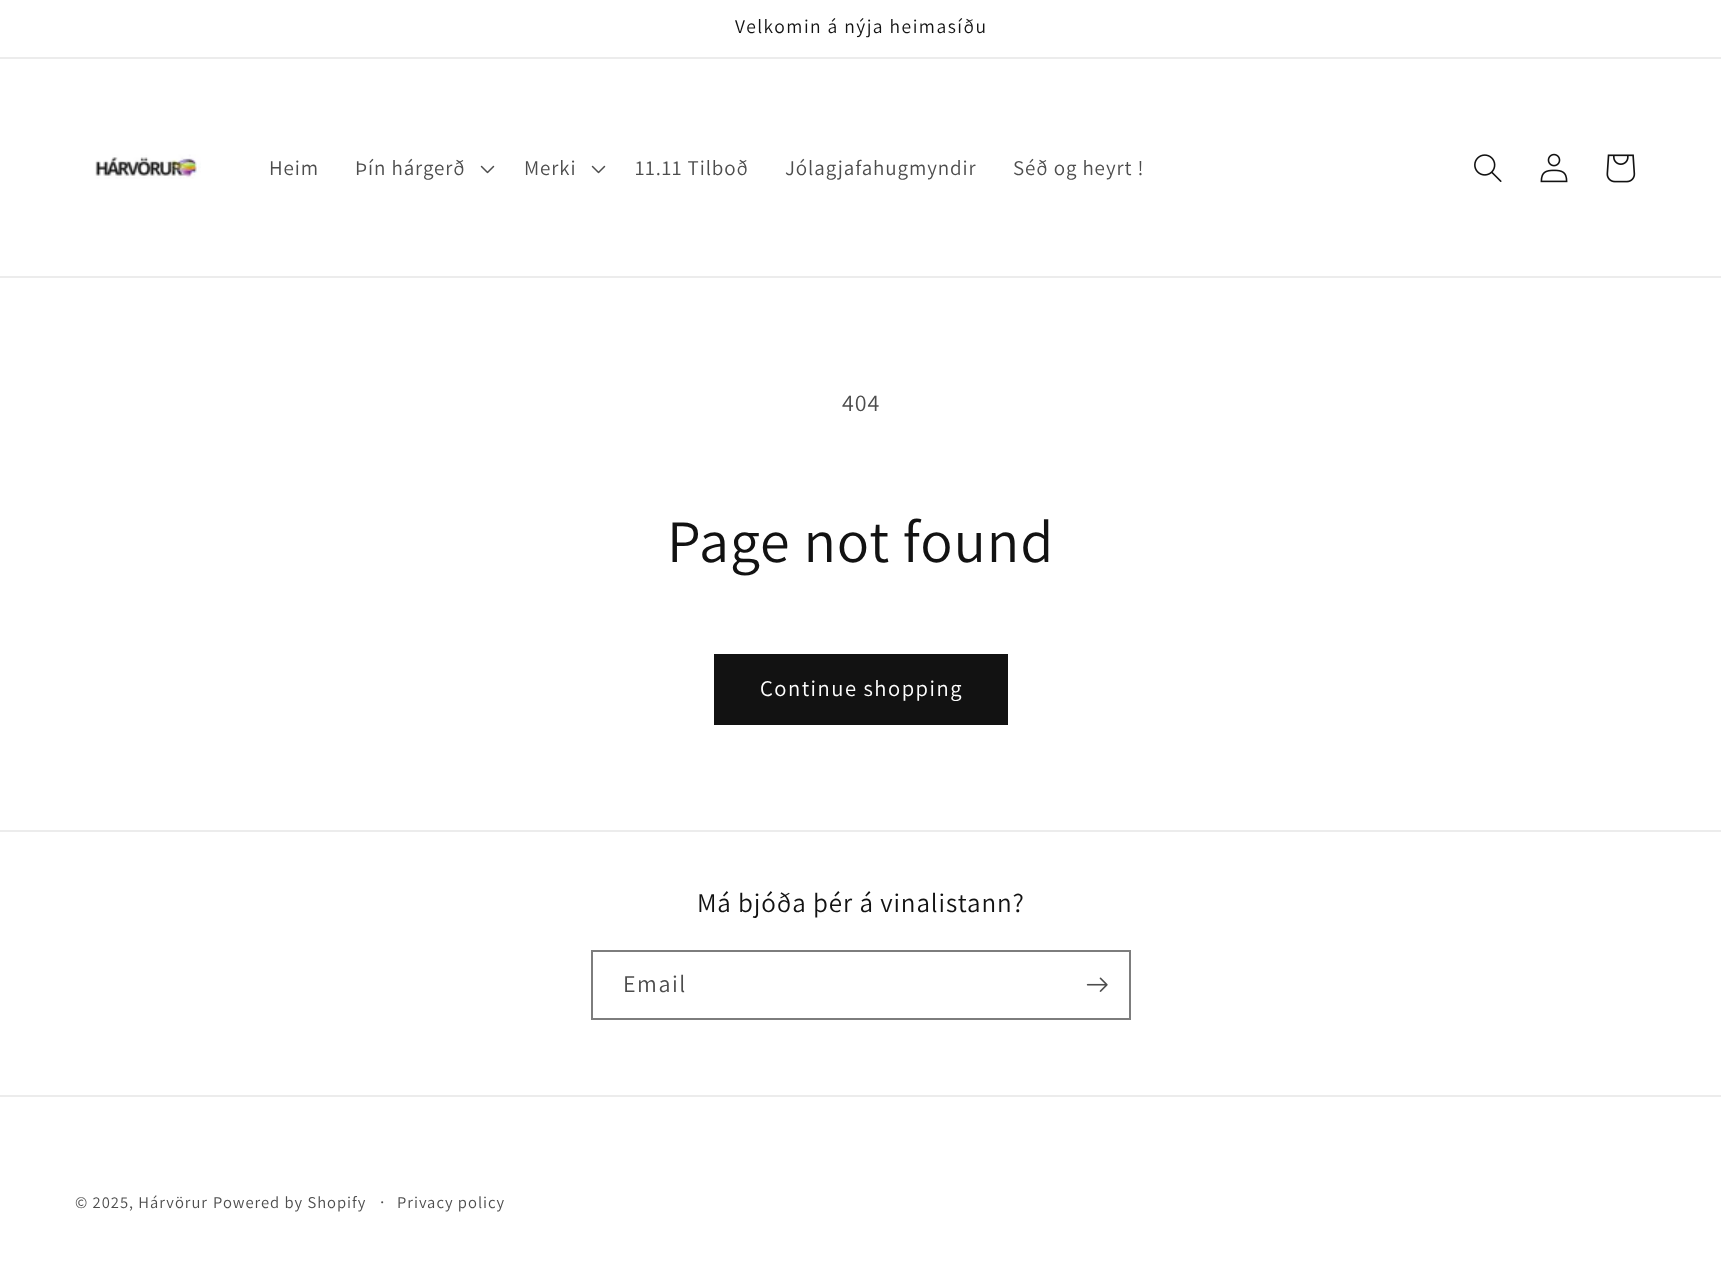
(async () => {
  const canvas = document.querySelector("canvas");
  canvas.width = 1721;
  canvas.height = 1268;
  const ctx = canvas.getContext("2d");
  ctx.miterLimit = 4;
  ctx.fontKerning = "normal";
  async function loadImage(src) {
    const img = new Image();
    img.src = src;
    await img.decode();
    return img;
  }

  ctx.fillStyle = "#ffffff";
  ctx.fillRect(0, 0, 1721, 1268);
  ctx.fillStyle = "#ececec";
  ctx.fillRect(0, 57, 1721, 2);
  ctx.fillRect(0, 276, 1721, 2);
  ctx.drawImage(await loadImage("img/1.png"), 95, 154, 106, 25);
  ctx.drawImage(await loadImage("img/2.png"), 480, 165, 15, 9);
  ctx.drawImage(await loadImage("img/2.png"), 591, 165, 15, 9);
  ctx.drawImage(await loadImage("img/3.png"), 1474, 154, 28, 28);
  ctx.drawImage(await loadImage("img/4.png"), 1540, 153, 28, 30);
  ctx.drawImage(await loadImage("img/5.png"), 1606, 154, 30, 29);
  ctx.fillStyle = "#121212";
  ctx.fillRect(714, 654, 294, 71);
  ctx.fillStyle = "#ececec";
  ctx.fillRect(0, 830, 1721, 2);
  ctx.strokeStyle = "#7d7d7d";
  ctx.lineWidth = 2;
  ctx.strokeRect(592, 951, 538, 68);
  ctx.drawImage(await loadImage("img/6.png"), 1086, 977, 22, 15);
  ctx.fillRect(0, 1095, 1721, 2);
  ctx.letterSpacing = "1.5px";
  ctx.font = "19.5px Assistant";
  ctx.fillStyle = "#121212";
  ctx.fillText("Velkomin á nýja heimasíðu", 735, 33);
  ctx.letterSpacing = "0.9px";
  ctx.font = "21px Assistant";
  ctx.fillStyle = "#4d4d4d";
  for (const [text, x, y] of [
    ["Heim", 269, 175],
    ["Þín hárgerð", 355, 175],
    ["Merki", 524, 175],
    ["11.11 Tilboð", 635, 175],
    ["Jólagjafahugmyndir", 785, 175],
    ["Séð og heyrt !", 1013, 175],
  ]) {
    ctx.fillText(text, x, y);
  }
  ctx.font = "24px Assistant";
  ctx.fillText("404", 842, 411);
  ctx.font = "60px Assistant";
  ctx.fillStyle = "#121212";
  ctx.fillText("Page not found", 667, 562);
  ctx.letterSpacing = "1.5px";
  ctx.font = "22.5px Assistant";
  ctx.fillStyle = "#ffffff";
  ctx.fillText("Continue shopping", 760, 696);
  ctx.letterSpacing = "0.9px";
  ctx.font = "27px Assistant";
  ctx.fillStyle = "#121212";
  ctx.fillText("Má bjóða þér á vinalistann?", 697, 912);
  ctx.letterSpacing = "1.5px";
  ctx.font = "24px Assistant";
  ctx.fillStyle = "#4d4d4d";
  ctx.fillText("Email", 623, 992);
  ctx.letterSpacing = "1px";
  ctx.font = "16.5px Assistant";
  ctx.fillText("© 2025, Hárvörur", 75, 1208);
  ctx.fillText("Powered by Shopify", 213, 1208);
  ctx.font = "18px Assistant";
  ctx.fillText("·", 380, 1208);
  ctx.font = "16.5px Assistant";
  ctx.fillText("Privacy policy", 397, 1208);
})();
